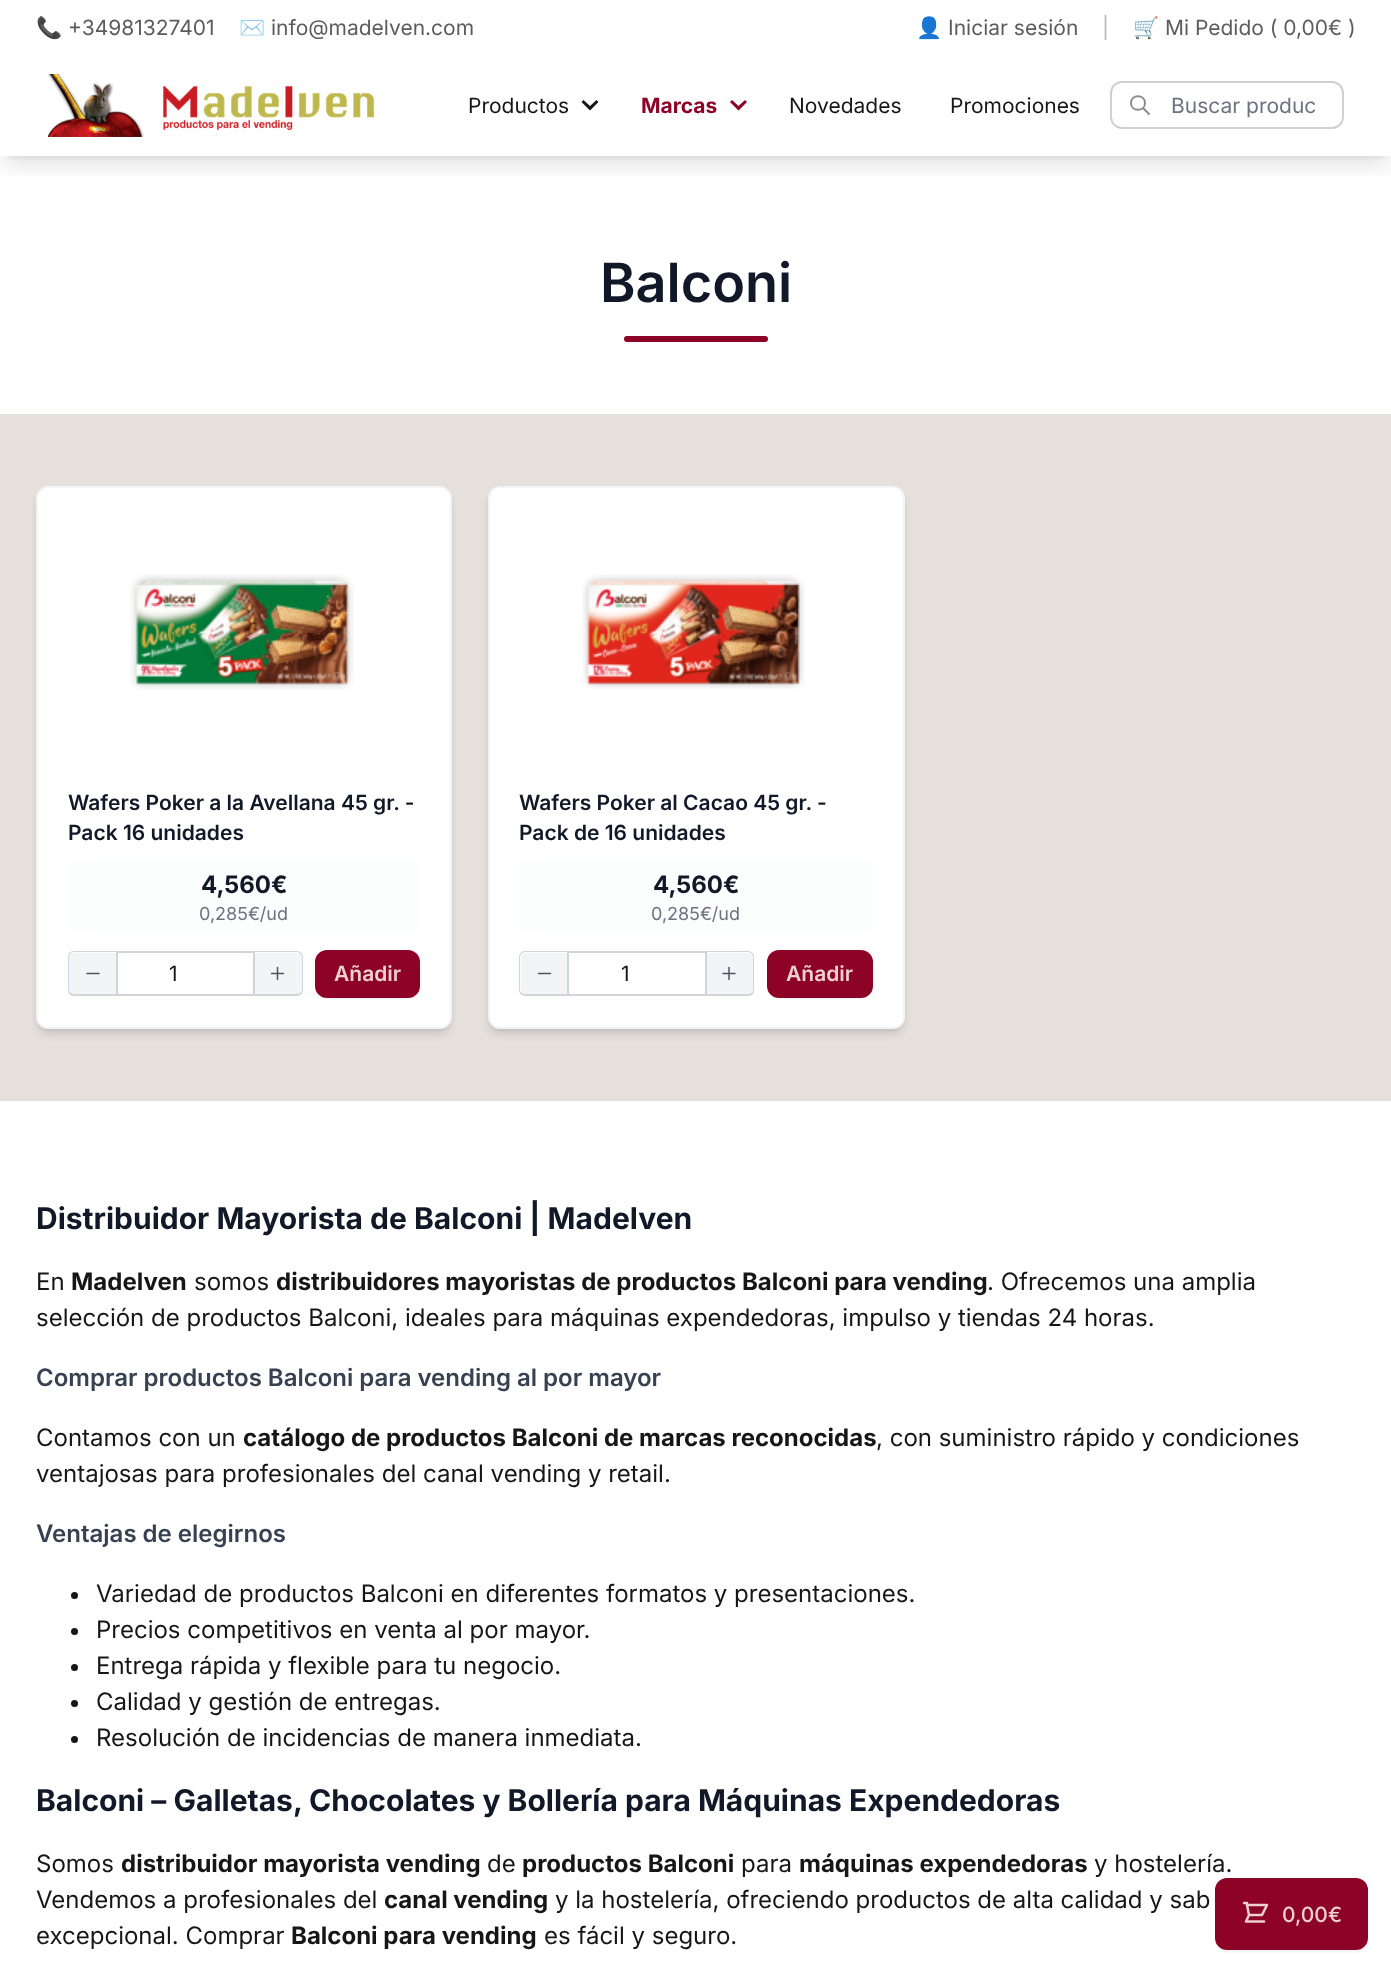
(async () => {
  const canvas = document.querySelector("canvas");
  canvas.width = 1391;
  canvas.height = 1974;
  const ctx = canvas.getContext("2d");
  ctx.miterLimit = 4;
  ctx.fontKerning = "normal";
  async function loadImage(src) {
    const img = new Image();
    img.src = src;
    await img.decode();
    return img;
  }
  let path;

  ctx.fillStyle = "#ffffff";
  ctx.fillRect(0, 0, 1391, 1974);
  ctx.save();
  ctx.beginPath();
  ctx.rect(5, 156, 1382, 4);
  ctx.clip();
  ctx.fillStyle = "rgba(0, 0, 0, 0.1)";
  ctx.filter = "blur(4.5px)";
  ctx.beginPath();
  ctx.rect(6, 66, 1380, 90);
  ctx.fill();
  ctx.filter = "none";
  ctx.restore();
  ctx.save();
  ctx.beginPath();
  ctx.rect(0, 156, 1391, 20);
  ctx.clip();
  ctx.fillStyle = "rgba(0, 0, 0, 0.1)";
  ctx.filter = "blur(11px)";
  ctx.beginPath();
  ctx.rect(5, 74, 1383, 93);
  ctx.fill();
  ctx.filter = "none";
  ctx.restore();
  ctx.drawImage(await loadImage("img/1.png"), 48, 74, 327, 63);
  ctx.fillStyle = "#161616";
  path = new Path2D("M583.5 100L581.5 102L590 110.5L598.5 102L596.5 100L590 106Z");
  ctx.fill(path);
  ctx.fillStyle = "#8c0327";
  path = new Path2D("M732 100L730 102L738.5 110.5L747 102L745 100L738.5 106Z");
  ctx.fill(path);
  ctx.beginPath();
  ctx.roundRect(1111, 82, 232, 46, 11);
  ctx.strokeStyle = "#d0d0d0";
  ctx.lineWidth = 2;
  ctx.stroke();
  path = new Path2D("M1149 114L1143 108M1145 103C1145 112 1131 112 1131 103C1131 94 1145 94 1145 103Z");
  ctx.strokeStyle = "#8b8b8b";
  ctx.lineCap = "round";
  ctx.lineJoin = "round";
  ctx.stroke(path);
  ctx.fillStyle = "rgba(0, 0, 0, 0.05)";
  ctx.filter = "blur(1.5px)";
  ctx.beginPath();
  ctx.roundRect(1215, 1880, 153, 72, 12);
  ctx.fill();
  ctx.filter = "none";
  ctx.fillStyle = "#8c0327";
  ctx.beginPath();
  ctx.roundRect(1216, 1879, 151, 70, 11);
  ctx.fill();
  ctx.strokeStyle = "#8c0327";
  ctx.lineJoin = "miter";
  ctx.stroke();
  path = new Path2D("M1244 1903H1247V1905M1249 1915H1262L1267 1905H1247M1247 1905L1249 1915M1249 1915L1246 1921.5H1264");
  ctx.strokeStyle = "#edd0d0";
  ctx.lineWidth = 2.5;
  ctx.lineJoin = "round";
  ctx.stroke(path);
  ctx.beginPath();
  ctx.roundRect(624, 336, 144, 6, 3);
  ctx.fill();
  ctx.fillStyle = "#e5e0dc";
  ctx.fillRect(0, 414, 1391, 687);
  ctx.fillStyle = "rgba(0, 0, 0, 0.1)";
  ctx.filter = "blur(3px)";
  ctx.beginPath();
  ctx.roundRect(39, 492, 410, 537, 9);
  ctx.fill();
  ctx.filter = "none";
  ctx.filter = "blur(4.5px)";
  ctx.beginPath();
  ctx.roundRect(38, 494, 412, 540, 11);
  ctx.fill();
  ctx.filter = "none";
  ctx.fillStyle = "#ffffff";
  ctx.beginPath();
  ctx.roundRect(37, 487, 414, 541, 11);
  ctx.fill();
  ctx.strokeStyle = "#f3f4f6";
  ctx.lineWidth = 2;
  ctx.lineJoin = "miter";
  ctx.stroke();
  ctx.drawImage(await loadImage("img/2.png"), 130, 574, 224, 116);
  ctx.fillStyle = "#fcfdfd";
  ctx.beginPath();
  ctx.roundRect(68, 860, 352, 72, 6);
  ctx.fill();
  ctx.fillStyle = "#f3f4f6";
  ctx.beginPath();
  ctx.roundRect(69, 953, 47, 42, [5, 0, 0, 5]);
  ctx.fill();
  ctx.fillStyle = "#d1d5db";
  path = new Path2D("M74 951H116V996H74C70 996 68 993 68 990V957C68 954 70 951 74 951ZM74 952H116V994H74C71 994 69 992 69 990V957C69 955 71 952 74 952Z");
  ctx.fill(path, "evenodd");
  path = new Path2D("M99 973.5H87");
  ctx.strokeStyle = "#4b5563";
  ctx.lineWidth = 1.5;
  ctx.lineJoin = "round";
  ctx.stroke(path);
  ctx.strokeStyle = "#d1d5db";
  ctx.lineWidth = 2;
  ctx.lineJoin = "miter";
  ctx.strokeRect(117, 952, 137, 43);
  ctx.fillStyle = "#f3f4f6";
  ctx.beginPath();
  ctx.roundRect(255, 953, 47, 42, [0, 5, 5, 0]);
  ctx.fill();
  ctx.fillStyle = "#d1d5db";
  path = new Path2D("M255 951H297C300 951 303 954 303 957V990C303 993 300 996 297 996H255ZM255 952H297C299 952 302 955 302 957V990C302 992 299 994 297 994H255Z");
  ctx.fill(path, "evenodd");
  path = new Path2D("M277.5 967.5V979.5M283.5 973.5H271.5");
  ctx.strokeStyle = "#4b5563";
  ctx.lineWidth = 1.5;
  ctx.lineJoin = "round";
  ctx.stroke(path);
  ctx.fillStyle = "rgba(0, 0, 0, 0.05)";
  ctx.filter = "blur(1.5px)";
  ctx.beginPath();
  ctx.roundRect(315, 951, 105, 48, 12);
  ctx.fill();
  ctx.filter = "none";
  ctx.fillStyle = "#8c0327";
  ctx.beginPath();
  ctx.roundRect(316, 951, 103, 46, 11);
  ctx.fill();
  ctx.strokeStyle = "#8c0327";
  ctx.lineWidth = 2;
  ctx.lineJoin = "miter";
  ctx.stroke();
  ctx.fillStyle = "rgba(0, 0, 0, 0.1)";
  ctx.filter = "blur(3px)";
  ctx.beginPath();
  ctx.roundRect(491, 492, 411, 537, 9);
  ctx.fill();
  ctx.filter = "none";
  ctx.filter = "blur(4.5px)";
  ctx.beginPath();
  ctx.roundRect(489, 494, 414, 540, 11);
  ctx.fill();
  ctx.filter = "none";
  ctx.fillStyle = "#ffffff";
  ctx.beginPath();
  ctx.roundRect(489, 487, 415, 541, 11);
  ctx.fill();
  ctx.strokeStyle = "#f3f4f6";
  ctx.stroke();
  ctx.drawImage(await loadImage("img/3.png"), 582, 574, 223, 115);
  ctx.fillStyle = "#fcfdfd";
  ctx.beginPath();
  ctx.roundRect(519, 860, 354, 72, 6);
  ctx.fill();
  ctx.fillStyle = "#f3f4f6";
  ctx.beginPath();
  ctx.roundRect(521, 953, 46, 42, [5, 0, 0, 5]);
  ctx.fill();
  ctx.fillStyle = "#d1d5db";
  path = new Path2D("M525 951H567V996H525C522 996 519 993 519 990V957C519 954 522 951 525 951ZM525 952H567V994H525C523 994 520 992 520 990V957C520 955 523 952 525 952Z");
  ctx.fill(path, "evenodd");
  path = new Path2D("M550.5 973.5H538.5");
  ctx.strokeStyle = "#4b5563";
  ctx.lineWidth = 1.5;
  ctx.lineJoin = "round";
  ctx.stroke(path);
  ctx.strokeStyle = "#d1d5db";
  ctx.lineWidth = 2;
  ctx.lineJoin = "miter";
  ctx.strokeRect(568, 952, 138, 43);
  ctx.fillStyle = "#f3f4f6";
  ctx.beginPath();
  ctx.roundRect(707, 953, 46, 42, [0, 5, 5, 0]);
  ctx.fill();
  ctx.fillStyle = "#d1d5db";
  path = new Path2D("M706 951H748C752 951 754 954 754 957V990C754 993 752 996 748 996H706ZM706 952H748C751 952 753 955 753 957V990C753 992 751 994 748 994H706Z");
  ctx.fill(path, "evenodd");
  path = new Path2D("M729 967.5V979.5M735 973.5H723");
  ctx.strokeStyle = "#4b5563";
  ctx.lineWidth = 1.5;
  ctx.lineJoin = "round";
  ctx.stroke(path);
  ctx.fillStyle = "rgba(0, 0, 0, 0.05)";
  ctx.filter = "blur(1.5px)";
  ctx.beginPath();
  ctx.roundRect(767, 951, 106, 48, 12);
  ctx.fill();
  ctx.filter = "none";
  ctx.fillStyle = "#8c0327";
  ctx.beginPath();
  ctx.roundRect(768, 951, 104, 46, 11);
  ctx.fill();
  ctx.strokeStyle = "#8c0327";
  ctx.lineWidth = 2;
  ctx.lineJoin = "miter";
  ctx.stroke();
  ctx.fillStyle = "#161616";
  ctx.beginPath();
  ctx.arc(74.5, 1595.5, 3.5, 0, Math.PI * 2);
  ctx.fill();
  ctx.beginPath();
  ctx.arc(74.5, 1631.5, 3.5, 0, Math.PI * 2);
  ctx.fill();
  ctx.beginPath();
  ctx.arc(74.5, 1667.5, 3.5, 0, Math.PI * 2);
  ctx.fill();
  ctx.beginPath();
  ctx.arc(74.5, 1703.5, 3.5, 0, Math.PI * 2);
  ctx.fill();
  ctx.beginPath();
  ctx.arc(74.5, 1739.5, 3.5, 0, Math.PI * 2);
  ctx.fill();
  ctx.font = "21px Noto Color Emoji";
  ctx.fillStyle = "#5c5c5c";
  ctx.fillText("📞", 36, 35);
  ctx.font = "21px Inter";
  ctx.fillText("+34981327401", 68, 35);
  ctx.font = "21px Noto Color Emoji";
  ctx.fillText("✉️", 239, 35);
  ctx.font = "21px Inter";
  ctx.fillText("info@madelven.com", 271, 35);
  ctx.font = "21px Noto Color Emoji";
  ctx.fillText("👤", 916, 35);
  ctx.font = "21px Inter";
  ctx.fillText("Iniciar sesión", 948, 35);
  ctx.fillStyle = "#b9b9b9";
  ctx.fillText("|", 1102, 35);
  ctx.font = "21px Noto Color Emoji";
  ctx.fillStyle = "#5c5c5c";
  ctx.fillText("🛒", 1133, 35);
  ctx.font = "21px Inter";
  ctx.fillText("Mi Pedido ( 0,00€ )", 1165, 35);
  ctx.fillStyle = "#161616";
  ctx.fillText("Productos", 468, 113);
  ctx.font = "bold 21px Inter";
  ctx.fillStyle = "#8c0327";
  ctx.fillText("Marcas", 641, 113);
  ctx.font = "21px Inter";
  ctx.fillStyle = "#161616";
  ctx.fillText("Novedades", 789, 113);
  ctx.fillText("Promociones", 950, 113);
  ctx.fillStyle = "#6b7280";
  ctx.fillText("Buscar produc", 1171, 113);
  ctx.font = "500 21px Inter";
  ctx.fillStyle = "#edd0d0";
  ctx.fillText("0,00€", 1282, 1922);
  ctx.font = "600 54px Inter";
  ctx.fillStyle = "#111827";
  ctx.fillText("Balconi", 600, 302);
  ctx.font = "600 21px Inter";
  ctx.fillText("Wafers Poker a la Avellana 45 gr. -", 68, 810);
  ctx.fillText("Pack 16 unidades", 68, 840);
  ctx.font = "bold 24px Inter";
  ctx.fillText("4,560€", 201, 893);
  ctx.font = "18px Inter";
  ctx.fillStyle = "#6b7280";
  ctx.fillText("0,285€/ud", 199, 920);
  ctx.font = "21px Inter";
  ctx.fillStyle = "#161616";
  ctx.fillText("1", 169, 981);
  ctx.font = "600 21px Inter";
  ctx.fillStyle = "#edd0d0";
  ctx.fillText("Añadir", 334, 981);
  ctx.fillStyle = "#111827";
  ctx.fillText("Wafers Poker al Cacao 45 gr. -", 519, 810);
  ctx.fillText("Pack de 16 unidades", 519, 840);
  ctx.font = "bold 24px Inter";
  ctx.fillText("4,560€", 653, 893);
  ctx.font = "18px Inter";
  ctx.fillStyle = "#6b7280";
  ctx.fillText("0,285€/ud", 651, 920);
  ctx.font = "21px Inter";
  ctx.fillStyle = "#161616";
  ctx.fillText("1", 621, 981);
  ctx.font = "600 21px Inter";
  ctx.fillStyle = "#edd0d0";
  ctx.fillText("Añadir", 786, 981);
  ctx.font = "bold 30px Inter";
  ctx.fillStyle = "#111827";
  ctx.fillText("Distribuidor Mayorista de Balconi | Madelven", 36, 1229);
  ctx.font = "24px Inter";
  ctx.fillStyle = "#161616";
  ctx.fillText("En", 36, 1290);
  ctx.font = "bold 24px Inter";
  ctx.fillText("Madelven", 71, 1290);
  ctx.font = "24px Inter";
  ctx.fillText("somos", 194, 1290);
  ctx.font = "bold 24px Inter";
  ctx.fillText("distribuidores mayoristas de productos Balconi para vending", 276, 1290);
  ctx.font = "24px Inter";
  ctx.fillText(". Ofrecemos una amplia", 987, 1290);
  ctx.fillText("selección de productos Balconi, ideales para máquinas expendedoras, impulso y tiendas 24 horas.", 36, 1326);
  ctx.font = "600 24px Inter";
  ctx.fillStyle = "#374151";
  ctx.fillText("Comprar productos Balconi para vending al por mayor", 36, 1386);
  ctx.font = "24px Inter";
  ctx.fillStyle = "#161616";
  ctx.fillText("Contamos con un", 36, 1446);
  ctx.font = "bold 24px Inter";
  ctx.fillText("catálogo de productos Balconi de marcas reconocidas", 243, 1446);
  ctx.font = "24px Inter";
  ctx.fillText(", con suministro rápido y condiciones", 876, 1446);
  ctx.fillText("ventajosas para profesionales del canal vending y retail.", 36, 1482);
  ctx.font = "600 24px Inter";
  ctx.fillStyle = "#374151";
  ctx.fillText("Ventajas de elegirnos", 36, 1542);
  ctx.font = "24px Inter";
  ctx.fillStyle = "#161616";
  for (const [text, x, y] of [
    ["Variedad de productos Balconi en diferentes formatos y presentaciones.", 96, 1602],
    ["Precios competitivos en venta al por mayor.", 96, 1638],
    ["Entrega rápida y flexible para tu negocio.", 96, 1674],
    ["Calidad y gestión de entregas.", 96, 1710],
    ["Resolución de incidencias de manera inmediata.", 96, 1746],
  ]) {
    ctx.fillText(text, x, y);
  }
  ctx.font = "bold 30px Inter";
  ctx.fillStyle = "#111827";
  ctx.fillText("Balconi – Galletas, Chocolates y Bollería para Máquinas Expendedoras", 36, 1811);
  ctx.font = "24px Inter";
  ctx.fillStyle = "#161616";
  ctx.fillText("Somos", 36, 1872);
  ctx.font = "bold 24px Inter";
  ctx.fillText("distribuidor mayorista vending", 121, 1872);
  ctx.font = "24px Inter";
  ctx.fillText("de", 487, 1872);
  ctx.font = "bold 24px Inter";
  ctx.fillText("productos Balconi", 522, 1872);
  ctx.font = "24px Inter";
  ctx.fillText("para", 741, 1872);
  ctx.font = "bold 24px Inter";
  ctx.fillText("máquinas expendedoras", 799, 1872);
  ctx.font = "24px Inter";
  ctx.fillText("y hostelería.", 1094, 1872);
  ctx.fillText("Vendemos a profesionales del", 36, 1908);
  ctx.font = "bold 24px Inter";
  ctx.fillText("canal vending", 384, 1908);
  ctx.font = "24px Inter";
  ctx.fillText("y la hostelería, ofreciendo productos de alta calidad y sab", 555, 1908);
  ctx.fillText("excepcional. Comprar", 36, 1944);
  ctx.font = "bold 24px Inter";
  ctx.fillText("Balconi para vending", 291, 1944);
  ctx.font = "24px Inter";
  ctx.fillText("es fácil y seguro.", 544, 1944);
})();
